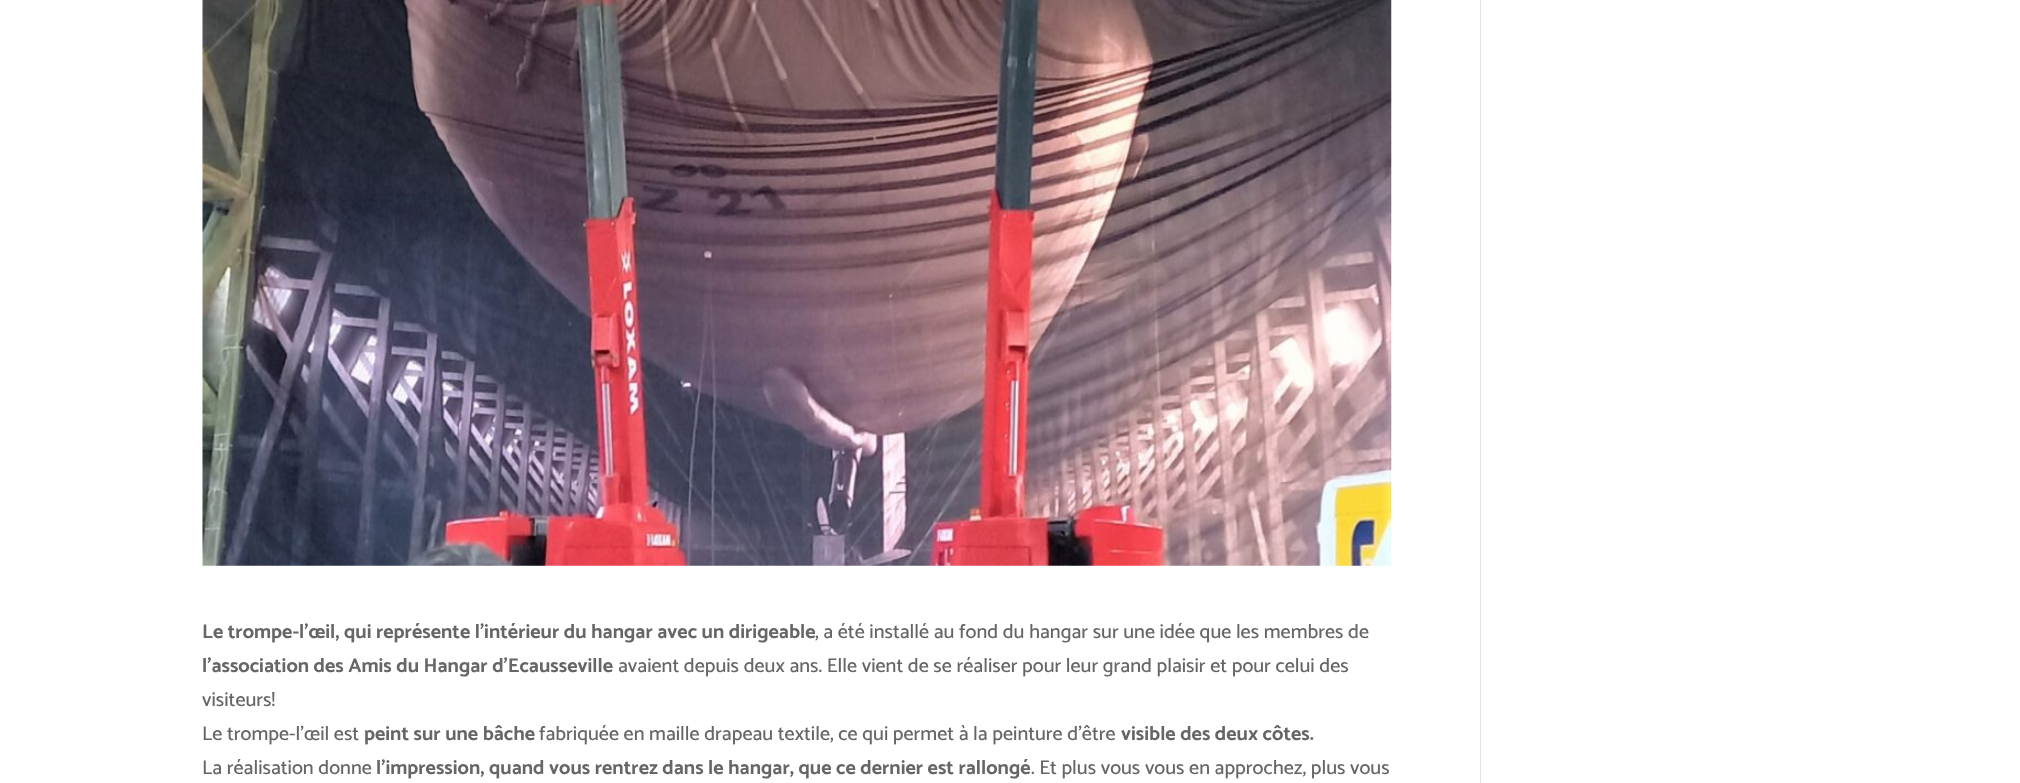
(async () => {
  const canvas = document.querySelector("canvas");
  canvas.width = 2020;
  canvas.height = 783;
  const ctx = canvas.getContext("2d");
  ctx.miterLimit = 4;
  ctx.fontKerning = "normal";
  async function loadImage(src) {
    const img = new Image();
    img.src = src;
    await img.decode();
    return img;
  }

  ctx.fillStyle = "#ffffff";
  ctx.fillRect(0, 0, 2020, 783);
  ctx.drawImage(await loadImage("img/1.png"), 202, 0, 1190, 566);
  ctx.fillStyle = "#e2e2e2";
  ctx.fillRect(1480, 0, 1, 783);
  ctx.font = "100 20px Catamaran";
  ctx.fillStyle = "#666666";
  ctx.fillText("Le trompe-l’œil, qui représente l’intérieur du hangar avec un dirigeable", 202, 638);
  ctx.font = "100 20px 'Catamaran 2'";
  ctx.fillText(", a été installé au fond du hangar sur une idée que les membres de", 815, 638);
  ctx.font = "100 20px Catamaran";
  ctx.fillText("l’association des Amis du Hangar d’Ecausseville", 202, 672);
  ctx.font = "100 20px 'Catamaran 2'";
  for (const [text, x, y] of [
    ["avaient depuis deux ans. Elle vient de se réaliser pour leur grand plaisir et pour celui des", 618, 672],
    ["visiteurs!", 202, 706],
    ["Le trompe-l’œil est", 202, 740],
  ]) {
    ctx.fillText(text, x, y);
  }
  ctx.font = "100 20px Catamaran";
  ctx.fillText("peint sur une bâche", 364, 740);
  ctx.font = "100 20px 'Catamaran 2'";
  ctx.fillText("fabriquée en maille drapeau textile, ce qui permet à la peinture d’être", 539, 740);
  ctx.font = "100 20px Catamaran";
  ctx.fillText("visible des deux côtes.", 1121, 740);
  ctx.font = "100 20px 'Catamaran 2'";
  ctx.fillText("La réalisation donne", 202, 774);
  ctx.font = "100 20px Catamaran";
  ctx.fillText("l’impression, quand vous rentrez dans le hangar, que ce dernier est rallongé", 376, 774);
  ctx.font = "100 20px 'Catamaran 2'";
  ctx.fillText(". Et plus vous vous en approchez, plus vous", 1031, 774);
})();
